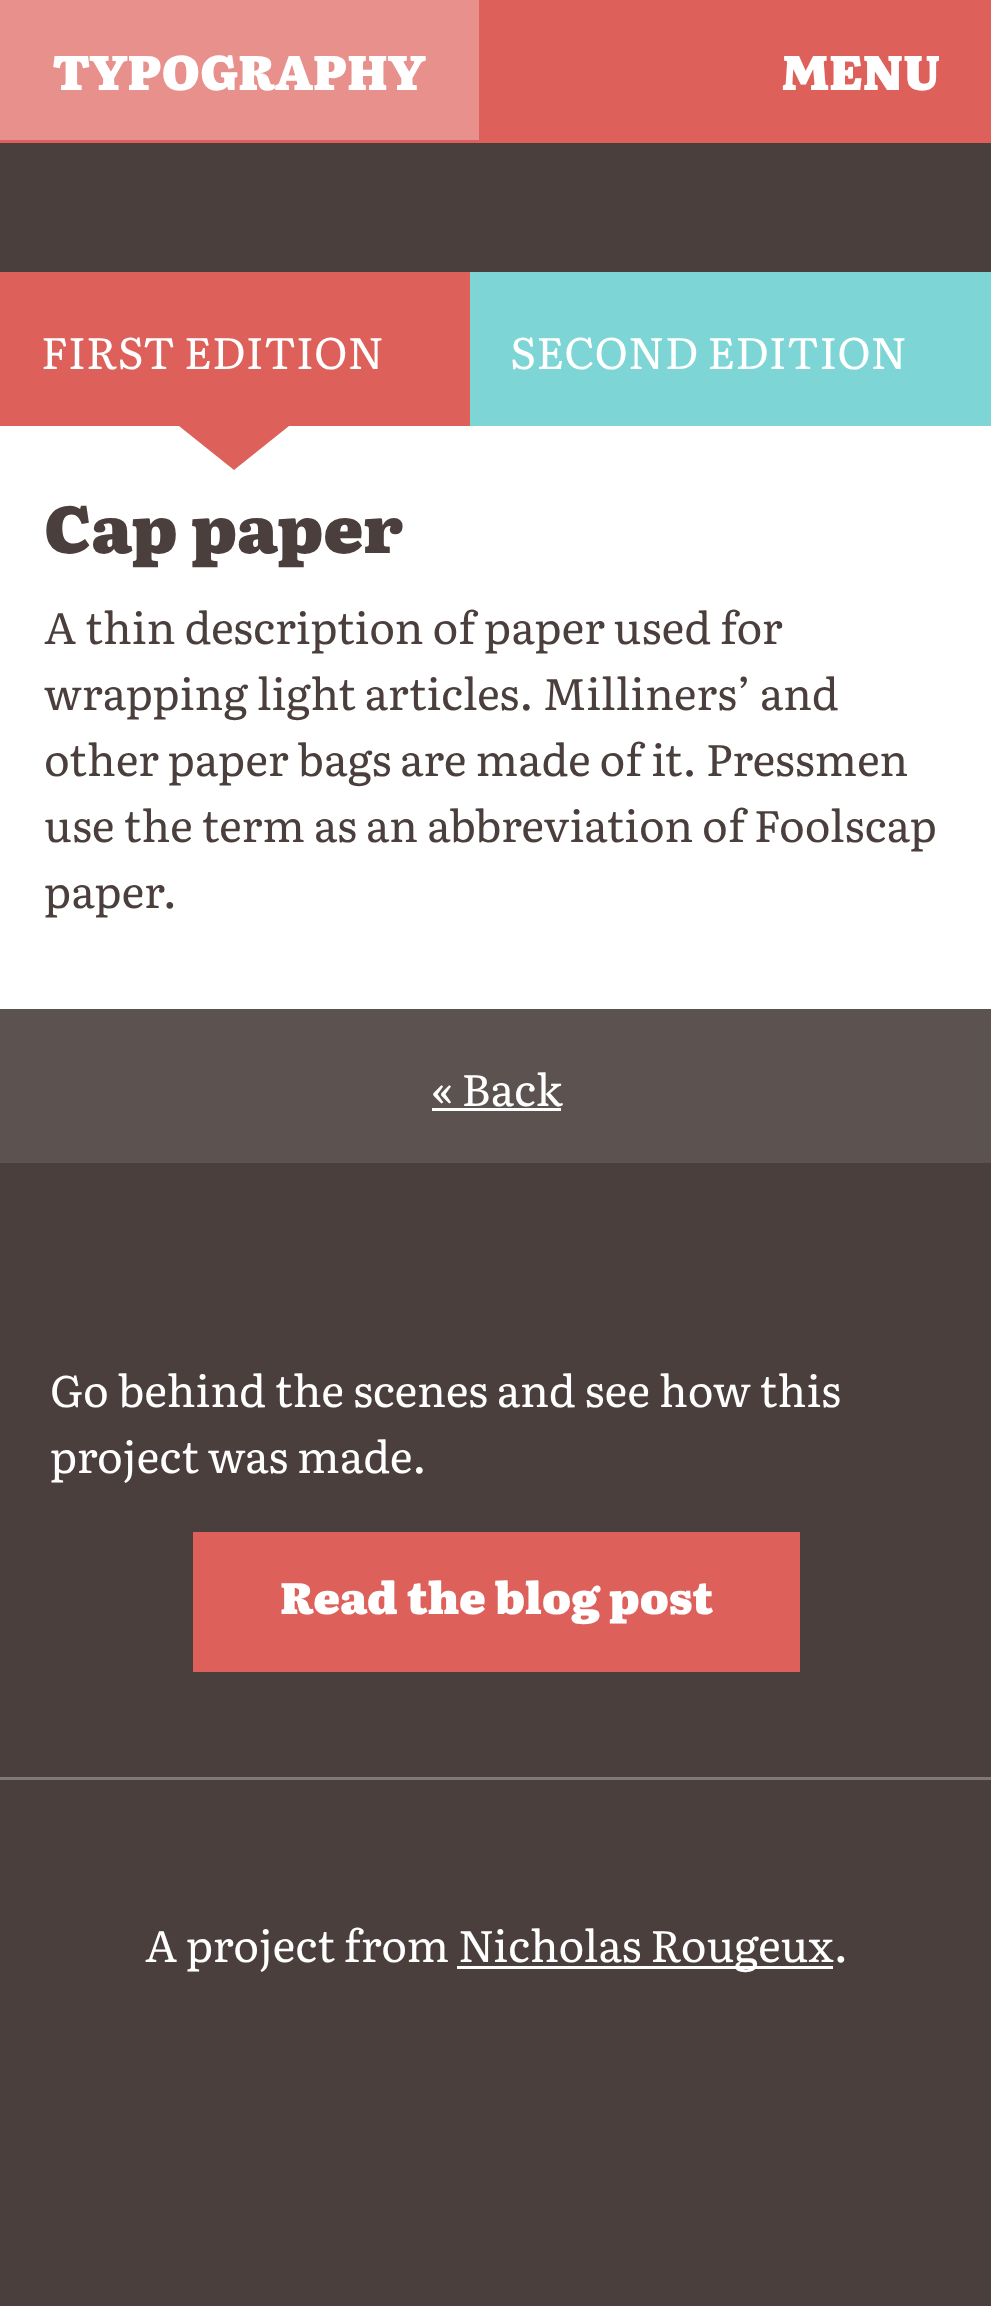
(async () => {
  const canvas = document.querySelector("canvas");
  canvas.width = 991;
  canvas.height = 2306;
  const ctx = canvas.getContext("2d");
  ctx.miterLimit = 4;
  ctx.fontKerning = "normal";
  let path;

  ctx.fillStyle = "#4a3f3c";
  ctx.fillRect(0, 0, 991, 2306);
  for (const [x, y, w, h, color] of [
    [0, 0, 991, 143, "#dd605b"],
    [0, 0, 479, 140, "#e7908c"],
    [0, 272, 470, 154, "#dd605b"],
    [0, 426, 991, 583, "#ffffff"],
  ]) {
    ctx.fillStyle = color;
    ctx.fillRect(x, y, w, h);
  }
  ctx.fillStyle = "#dd605b";
  path = new Path2D("M179 426H289L234 470Z");
  ctx.fill(path);
  for (const [x, y, w, h, color] of [
    [470, 272, 521, 154, "#7dd6d5"],
    [0, 1009, 991, 154, "#5c5250"],
    [432, 1108, 129, 3, "#ffffff"],
    [0, 1777, 991, 3, "#807977"],
    [193, 1532, 607, 140, "#dd605b"],
    [457, 1966, 376, 3, "#ffffff"],
  ]) {
    ctx.fillStyle = color;
    ctx.fillRect(x, y, w, h);
  }
  ctx.font = "900 48.5px Literata";
  ctx.fillText("TYPOGRAPHY", 53, 90);
  ctx.fillText("MENU", 782, 90);
  ctx.font = "44px Literata";
  ctx.fillText("FIRST EDITION", 41, 369);
  ctx.fillText("SECOND EDITION", 510, 369);
  ctx.font = "900 66px Literata";
  ctx.fillStyle = "#4a3f3c";
  ctx.fillText("Cap paper", 44, 553);
  ctx.font = "44px Literata";
  for (const [text, x, y] of [
    ["A thin description of paper used for", 44, 644],
    ["wrapping light articles. Milliners’ and", 44, 710],
    ["other paper bags are made of it. Pressmen", 44, 776],
    ["use the term as an abbreviation of Foolscap", 44, 842],
    ["paper.", 44, 908],
  ]) {
    ctx.fillText(text, x, y);
  }
  ctx.fillStyle = "#ffffff";
  for (const [text, x, y] of [
    ["« Back", 431, 1106],
    ["Go behind the scenes and see how this", 50, 1407],
    ["project was made.", 50, 1473],
  ]) {
    ctx.fillText(text, x, y);
  }
  ctx.font = "900 44px Literata";
  ctx.fillText("Read the blog post", 280, 1614);
  ctx.font = "44px Literata";
  ctx.fillText("A project from", 145, 1962);
  ctx.fillText("Nicholas Rougeux.", 458, 1962);
})();
